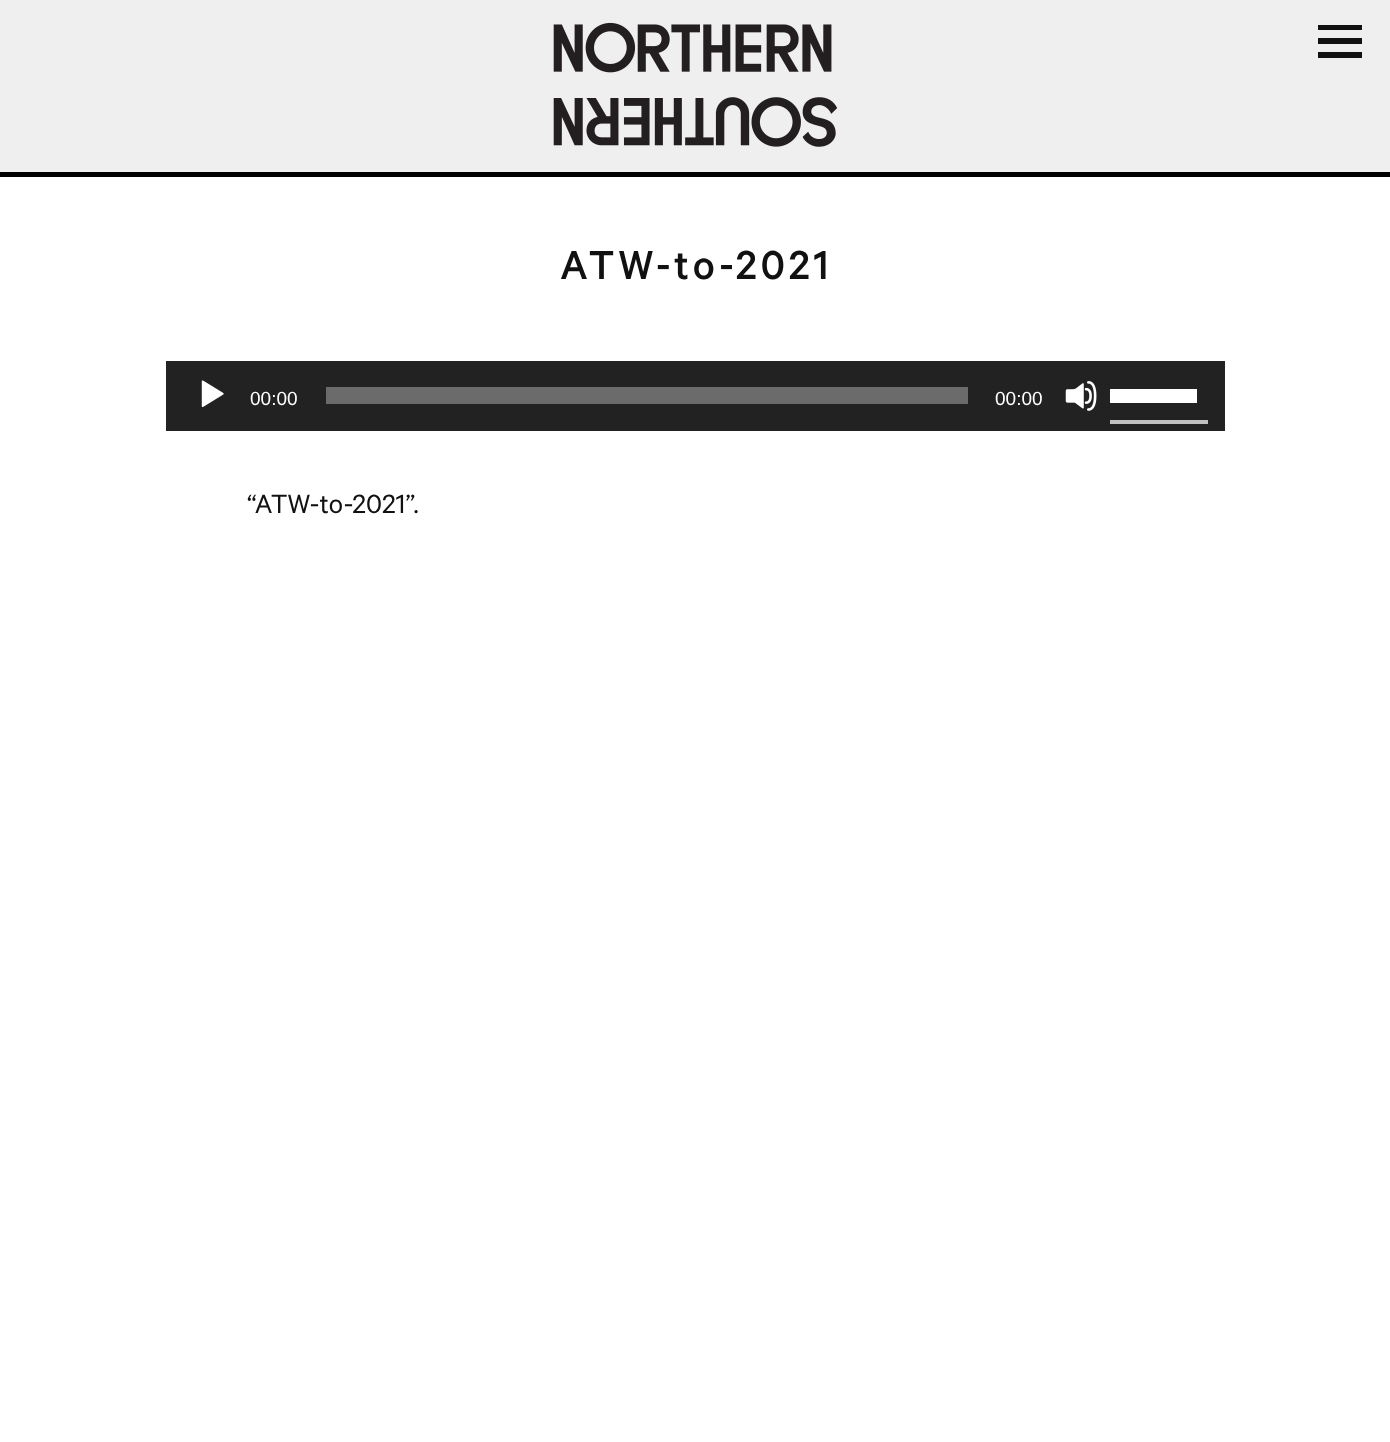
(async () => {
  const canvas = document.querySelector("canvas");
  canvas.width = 1390;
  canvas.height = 1442;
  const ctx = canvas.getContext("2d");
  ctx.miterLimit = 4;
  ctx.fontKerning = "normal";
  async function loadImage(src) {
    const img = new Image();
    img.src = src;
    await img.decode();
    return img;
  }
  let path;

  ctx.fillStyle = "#ffffff";
  ctx.fillRect(0, 0, 1390, 1442);
  ctx.fillStyle = "#efefef";
  ctx.fillRect(0, 0, 1390, 172);
  ctx.drawImage(await loadImage("img/1.png"), 553, 22, 285, 125);
  ctx.fillStyle = "#111111";
  path = new Path2D("M1318 58V52H1362V58ZM1318 25H1362V30H1318ZM1318 44V38H1362V44Z");
  ctx.fill(path);
  ctx.fillStyle = "#000000";
  ctx.fillRect(0, 172, 1390, 5);
  ctx.fillStyle = "#222222";
  ctx.fillRect(166, 361, 1059, 70);
  ctx.drawImage(await loadImage("img/2.png"), 201, 380, 23, 28);
  ctx.fillStyle = "#6b6b6b";
  ctx.fillRect(326, 387, 642, 17);
  ctx.drawImage(await loadImage("img/3.png"), 1065, 381, 32, 30);
  ctx.fillStyle = "#c0c0c0";
  ctx.fillRect(1110, 420, 98, 4);
  ctx.fillStyle = "#ffffff";
  ctx.fillRect(1110, 389, 87, 14);
  ctx.letterSpacing = "3.5px";
  ctx.font = "500 45.5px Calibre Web";
  ctx.fillStyle = "#111111";
  ctx.fillText("ATW-to-2021", 560, 279);
  ctx.letterSpacing = "0px";
  ctx.font = "19px Liberation Sans";
  ctx.fillStyle = "#ffffff";
  ctx.fillText("00:00", 250, 405);
  ctx.fillText("00:00", 995, 405);
  ctx.font = "29.75px Calibre Web";
  ctx.fillStyle = "#111111";
  ctx.fillText("“ATW-to-2021”.", 247, 513);
})();
